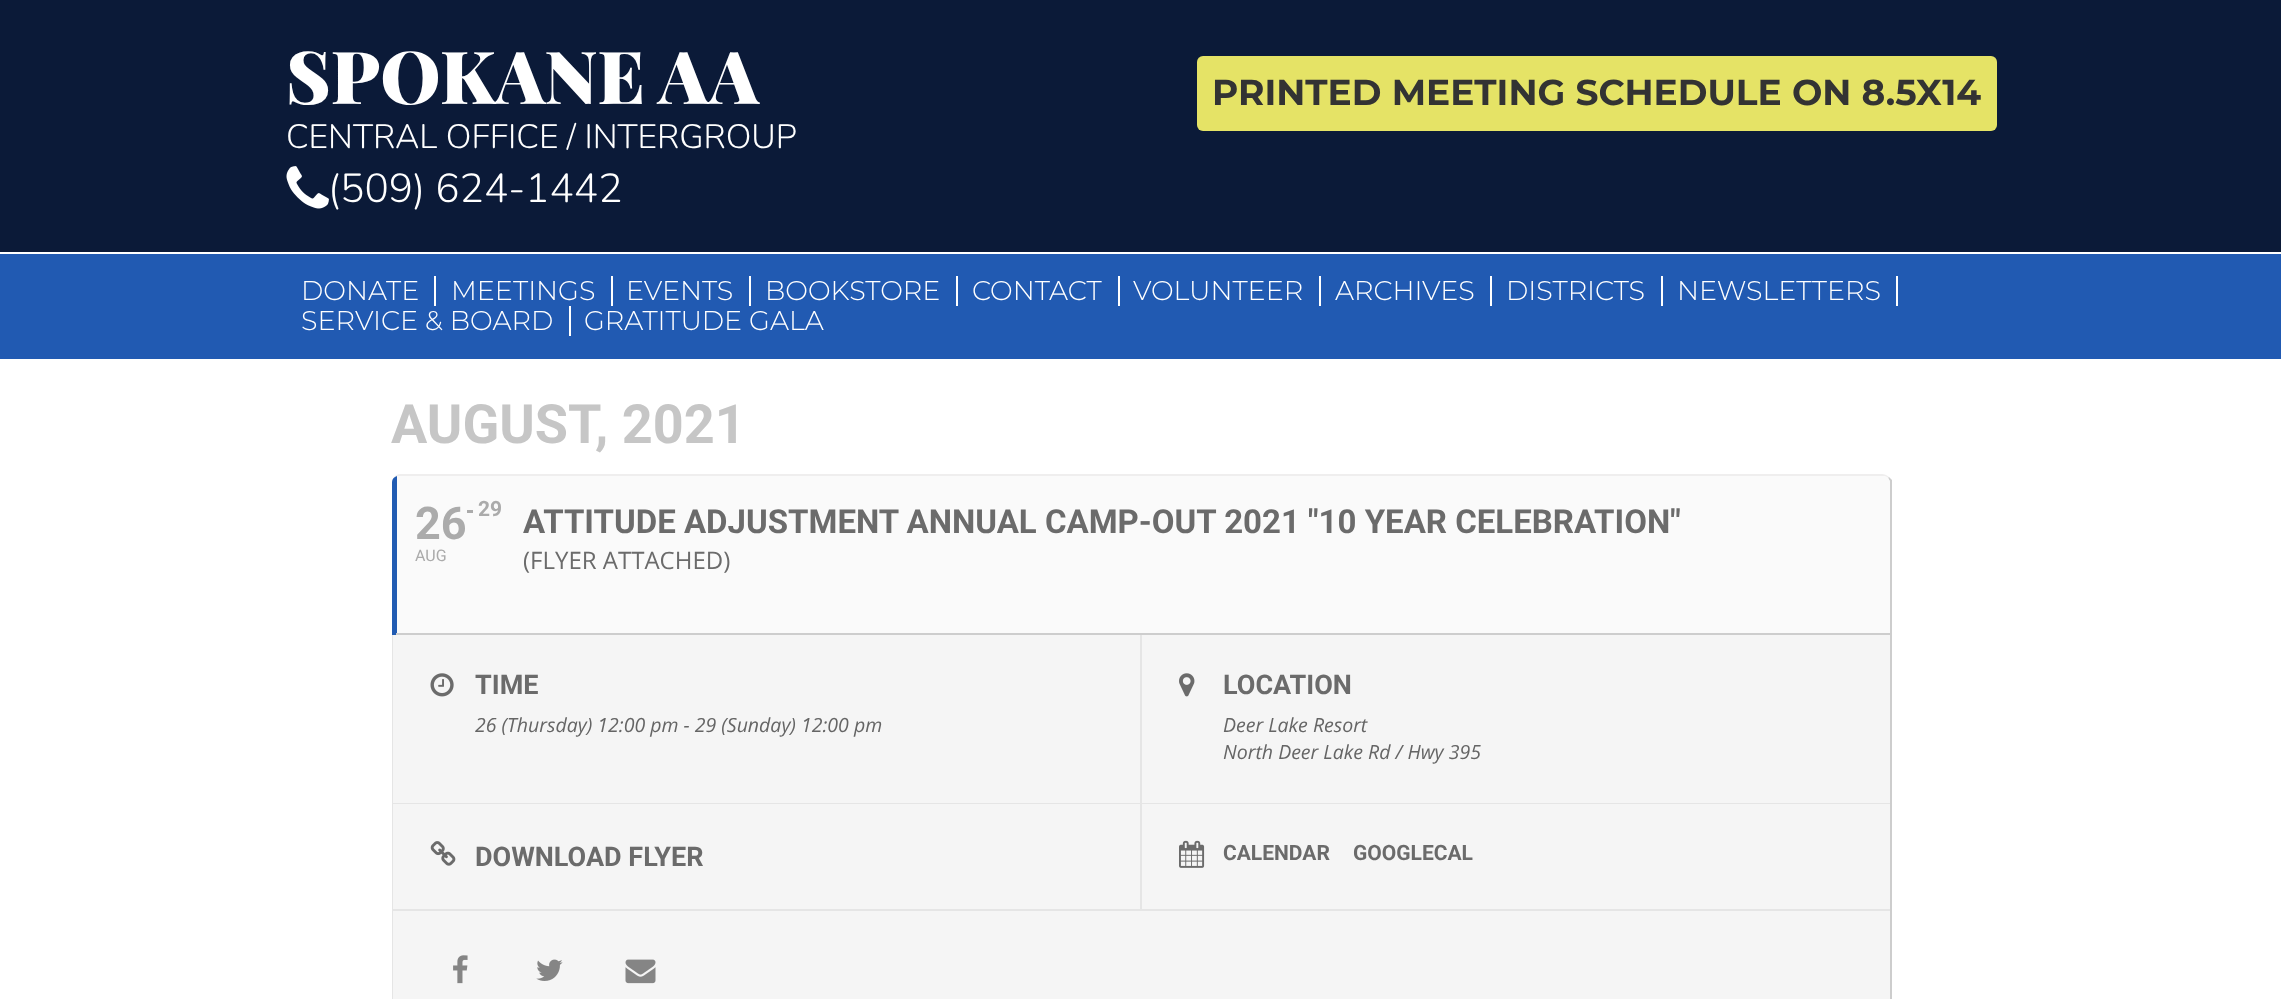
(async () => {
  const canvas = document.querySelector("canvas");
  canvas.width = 2281;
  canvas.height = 999;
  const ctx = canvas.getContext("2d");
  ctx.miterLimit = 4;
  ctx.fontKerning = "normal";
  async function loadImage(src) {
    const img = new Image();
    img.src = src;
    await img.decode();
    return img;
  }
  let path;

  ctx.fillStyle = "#ffffff";
  ctx.fillRect(0, 0, 2281, 999);
  ctx.fillStyle = "#0b1a38";
  ctx.fillRect(0, 0, 2281, 252);
  ctx.drawImage(await loadImage("img/1.png"), 286, 166, 43, 43);
  ctx.fillStyle = "#e5e366";
  ctx.beginPath();
  ctx.roundRect(1197, 56, 800, 75, 6);
  ctx.fill();
  for (const [x, y, w, h, color] of [
    [0, 254, 2281, 105, "#215ab2"],
    [434, 276, 2, 30, "#ffffff"],
    [611, 276, 2, 30, "#ffffff"],
    [749, 276, 2, 30, "#ffffff"],
    [956, 276, 2, 30, "#ffffff"],
    [1118, 276, 2, 30, "#ffffff"],
    [1319, 276, 2, 30, "#ffffff"],
    [1490, 276, 2, 30, "#ffffff"],
    [1661, 276, 2, 30, "#ffffff"],
    [1896, 276, 2, 30, "#ffffff"],
    [569, 306, 2, 30, "#ffffff"],
  ]) {
    ctx.fillStyle = color;
    ctx.fillRect(x, y, w, h);
  }
  ctx.fillStyle = "#efeeee";
  path = new Path2D("M400 474H1882C1884 474 1887 475 1889 477L1888 478C1886 477 1884 476 1882 476H400C396 476 392 479 392 483C392 478 396 474 400 474Z");
  ctx.fill(path);
  ctx.fillStyle = "#cdcdcd";
  path = new Path2D("M1889 477L1888 478C1889 479 1890 481 1890 483V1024C1890 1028 1888 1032 1885 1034C1888 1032 1890 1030 1892 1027V480C1891 479 1890 478 1889 477Z");
  ctx.fill(path);
  ctx.fillStyle = "#fafafa";
  path = new Path2D("M392 482V480C393 478 395 477 397 476H1885C1888 477 1890 480 1890 483V635H392Z");
  ctx.fill(path);
  ctx.fillStyle = "#215bb2";
  path = new Path2D("M392 482C392 479 394 477 397 476V635H392Z");
  ctx.fill(path);
  ctx.fillStyle = "#ababab";
  ctx.fillRect(467, 510, 6, 3);
  ctx.fillStyle = "#cdcdcd";
  ctx.fillRect(396, 633, 1494, 2);
  ctx.fillStyle = "#e5e5e5";
  path = new Path2D("M392 635H394V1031C393 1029 392 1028 392 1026Z");
  ctx.fill(path);
  for (const [x, y, w, h, color] of [
    [393, 803, 1497, 1, "#e5e5e5"],
    [393, 635, 1497, 168, "#f5f5f5"],
    [1140, 635, 2, 168, "#e5e5e5"],
  ]) {
    ctx.fillStyle = color;
    ctx.fillRect(x, y, w, h);
  }
  ctx.drawImage(await loadImage("img/2.png"), 430, 673, 24, 24);
  ctx.drawImage(await loadImage("img/3.png"), 1179, 673, 16, 24);
  for (const [x, y, w, h, color] of [
    [393, 909, 1497, 2, "#e5e5e5"],
    [393, 804, 1497, 105, "#f5f5f5"],
    [1140, 804, 2, 105, "#e5e5e5"],
  ]) {
    ctx.fillStyle = color;
    ctx.fillRect(x, y, w, h);
  }
  ctx.drawImage(await loadImage("img/4.png"), 430, 841, 26, 25);
  ctx.drawImage(await loadImage("img/5.png"), 1179, 840, 26, 28);
  ctx.fillStyle = "#f5f5f5";
  path = new Path2D("M393 911H1890V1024C1890 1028 1889 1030 1887 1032H396L393 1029Z");
  ctx.fill(path);
  ctx.drawImage(await loadImage("img/6.png"), 453, 955, 15, 29);
  ctx.drawImage(await loadImage("img/7.png"), 536, 959, 27, 22);
  ctx.drawImage(await loadImage("img/8.png"), 625, 959, 31, 25);
  ctx.font = "900 73px Playfair Display";
  ctx.fillStyle = "#ffffff";
  ctx.fillText("SPOKANE AA", 286, 104);
  ctx.font = "300 33.75px Nunito";
  ctx.fillText("CENTRAL OFFICE / INTERGROUP", 286, 148);
  ctx.font = "300 40.5px Nunito";
  ctx.fillText("(509) 624-1442", 328, 202);
  ctx.font = "bold 36px Montserrat";
  ctx.fillStyle = "#333333";
  ctx.fillText("PRINTED MEETING SCHEDULE ON 8.5X14", 1212, 105);
  ctx.font = "300 27px Montserrat";
  ctx.fillStyle = "#ffffff";
  for (const [text, x, y] of [
    ["DONATE", 301, 300],
    ["MEETINGS", 451, 300],
    ["EVENTS", 626, 300],
    ["BOOKSTORE", 765, 300],
    ["CONTACT", 972, 300],
    ["VOLUNTEER", 1133, 300],
    ["ARCHIVES", 1335, 300],
    ["DISTRICTS", 1506, 300],
    ["NEWSLETTERS", 1677, 300],
    ["SERVICE & BOARD", 301, 330],
    ["GRATITUDE GALA", 584, 330],
  ]) {
    ctx.fillText(text, x, y);
  }
  ctx.font = "bold 54px Roboto";
  ctx.fillStyle = "#c6c6c6";
  ctx.fillText("AUGUST, 2021", 391, 443);
  ctx.font = "bold 45px Roboto";
  ctx.fillStyle = "#ababab";
  ctx.fillText("26", 415, 539);
  ctx.font = "16px Roboto";
  ctx.fillText("AUG", 415, 561);
  ctx.font = "bold 21px Roboto";
  ctx.fillText("29", 478, 516);
  ctx.font = "bold 33px Roboto";
  ctx.fillStyle = "#6b6b6b";
  ctx.fillText("ATTITUDE ADJUSTMENT ANNUAL CAMP-OUT 2021 \"10 YEAR CELEBRATION\"", 523, 533);
  ctx.font = "24px Open Sans";
  ctx.fillText("(FLYER ATTACHED)", 523, 569);
  ctx.font = "bold 27px Roboto";
  ctx.fillText("TIME", 475, 694);
  ctx.font = "italic 19.5px Open Sans";
  ctx.fillStyle = "#656565";
  ctx.fillText("26 (Thursday) 12:00 pm - 29 (Sunday) 12:00 pm", 475, 732);
  ctx.font = "bold 27px Roboto";
  ctx.fillStyle = "#6b6b6b";
  ctx.fillText("LOCATION", 1223, 694);
  ctx.font = "italic 19.5px Open Sans";
  ctx.fillStyle = "#656565";
  ctx.fillText("Deer Lake Resort", 1223, 732);
  ctx.fillText("North Deer Lake Rd / Hwy 395", 1223, 759);
  ctx.font = "bold 27px Roboto";
  ctx.fillStyle = "#6b6b6b";
  ctx.fillText("DOWNLOAD FLYER", 475, 866);
  ctx.font = "bold 21px Roboto";
  ctx.fillText("CALENDAR", 1223, 860);
  ctx.fillText("GOOGLECAL", 1353, 860);
})();
